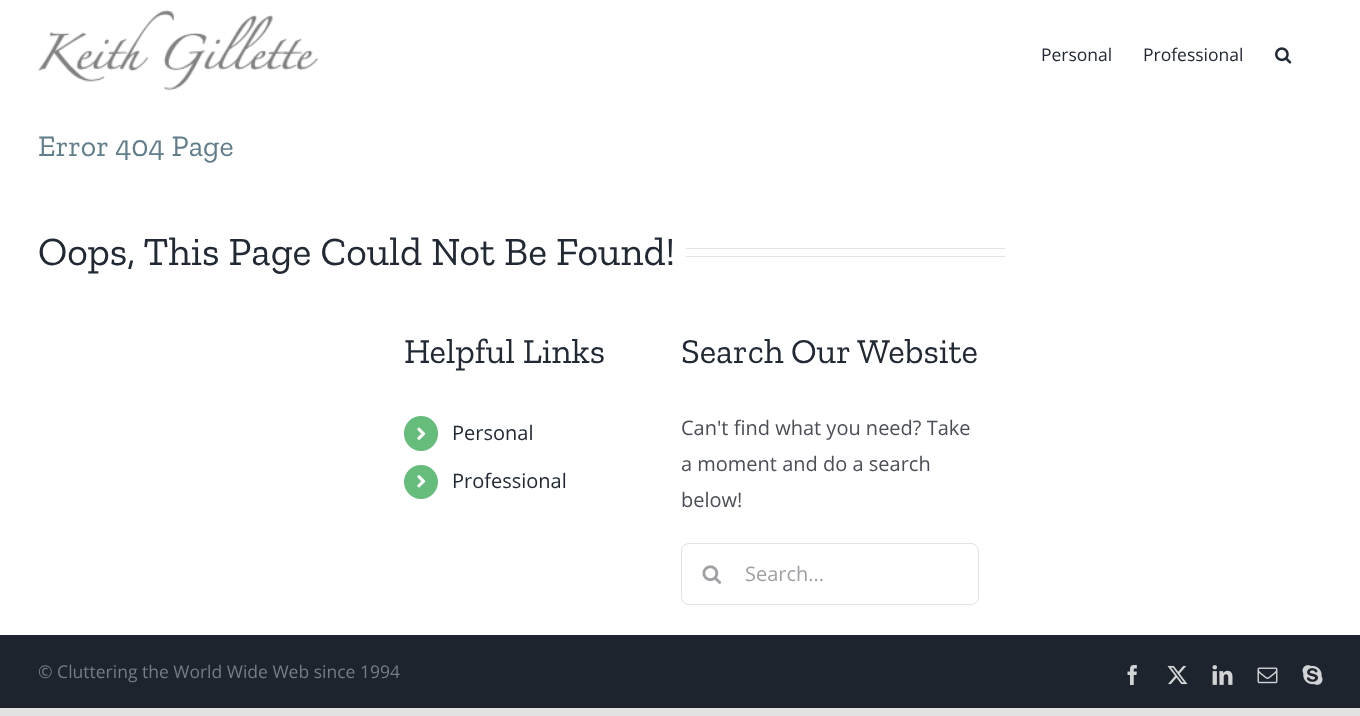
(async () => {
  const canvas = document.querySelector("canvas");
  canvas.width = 1360;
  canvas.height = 716;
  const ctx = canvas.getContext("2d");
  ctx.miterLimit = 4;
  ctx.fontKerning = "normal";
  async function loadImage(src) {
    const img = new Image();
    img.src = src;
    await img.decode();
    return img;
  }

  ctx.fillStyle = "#e2e2e2";
  ctx.fillRect(0, 0, 1360, 716);
  ctx.fillStyle = "#ffffff";
  ctx.fillRect(0, 0, 1360, 635);
  ctx.drawImage(await loadImage("img/1.png"), 38, 10, 280, 81);
  ctx.drawImage(await loadImage("img/2.png"), 1275, 47, 17, 17);
  ctx.fillStyle = "#e2e2e2";
  ctx.fillRect(686, 248, 319, 1);
  ctx.fillRect(686, 256, 319, 1);
  ctx.fillStyle = "#65bc7b";
  ctx.beginPath();
  ctx.roundRect(404, 416, 34, 35, 17);
  ctx.fill();
  ctx.drawImage(await loadImage("img/3.png"), 417, 427, 9, 13);
  ctx.beginPath();
  ctx.arc(421, 482, 17, 0, Math.PI * 2);
  ctx.fill();
  ctx.drawImage(await loadImage("img/4.png"), 417, 475, 9, 13);
  ctx.beginPath();
  ctx.roundRect(681.5, 543.5, 297, 61, 7.5);
  ctx.strokeStyle = "#e2e2e2";
  ctx.stroke();
  ctx.drawImage(await loadImage("img/5.png"), 702, 565, 19, 19);
  ctx.fillStyle = "#1d242d";
  ctx.fillRect(0, 635, 1360, 73);
  ctx.drawImage(await loadImage("img/6.png"), 1127, 665, 10, 20);
  ctx.drawImage(await loadImage("img/7.png"), 1167, 665, 21, 20);
  ctx.drawImage(await loadImage("img/8.png"), 1212, 665, 21, 20);
  ctx.drawImage(await loadImage("img/9.png"), 1257, 667, 21, 17);
  ctx.drawImage(await loadImage("img/10.png"), 1302, 665, 21, 20);
  ctx.font = "17.5px Open Sans";
  ctx.fillStyle = "#212934";
  ctx.fillText("Personal", 1041, 61);
  ctx.fillText("Professional", 1143, 61);
  ctx.font = "30px Zilla Slab";
  ctx.fillStyle = "#607d8b";
  ctx.fillText("Error 404 Page", 38, 156);
  ctx.font = "40px Zilla Slab";
  ctx.fillStyle = "#212934";
  ctx.fillText("Oops, This Page Could Not Be Found!", 38, 265);
  ctx.font = "35px Zilla Slab";
  ctx.fillText("Helpful Links", 404, 363);
  ctx.font = "20px Open Sans";
  ctx.fillText("Personal", 452, 440);
  ctx.fillText("Professional", 452, 488);
  ctx.font = "35px Zilla Slab";
  ctx.fillText("Search Our Website", 681, 363);
  ctx.font = "20px Open Sans";
  ctx.fillStyle = "#4a4e57";
  for (const [text, x, y] of [
    ["Can't find what you need? Take", 681, 435],
    ["a moment and do a search", 681, 471],
    ["below!", 681, 507],
  ]) {
    ctx.fillText(text, x, y);
  }
  ctx.fillStyle = "#9ea0a4";
  ctx.fillText("Search...", 745, 581);
  ctx.font = "17.5px Open Sans";
  ctx.fillStyle = "#777c81";
  ctx.fillText("© Cluttering the World Wide Web since 1994", 38, 678);
})();
